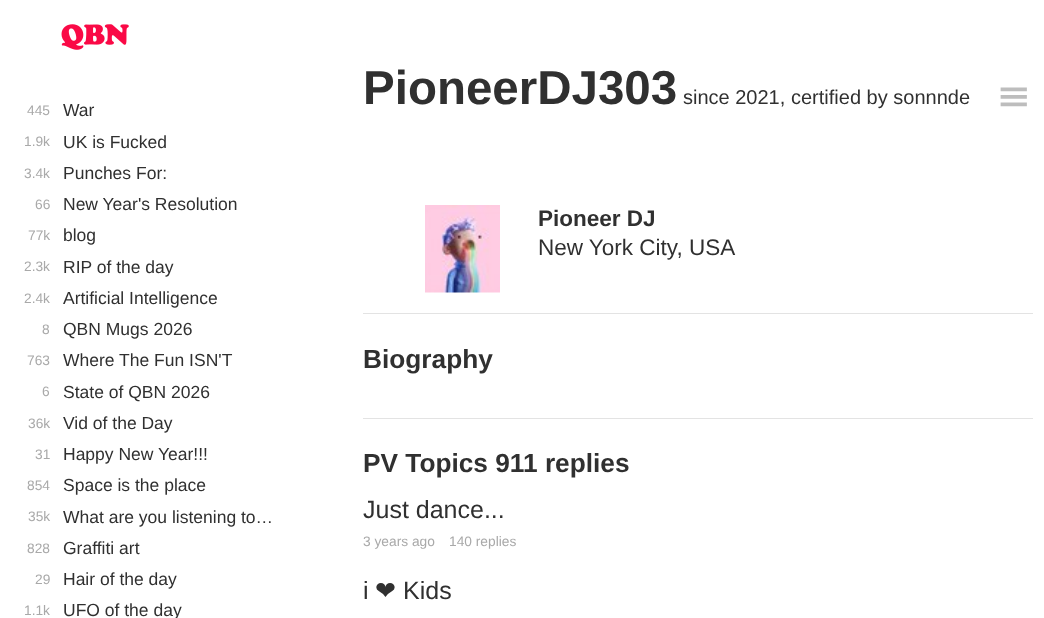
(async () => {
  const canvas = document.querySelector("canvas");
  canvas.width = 1044;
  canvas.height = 618;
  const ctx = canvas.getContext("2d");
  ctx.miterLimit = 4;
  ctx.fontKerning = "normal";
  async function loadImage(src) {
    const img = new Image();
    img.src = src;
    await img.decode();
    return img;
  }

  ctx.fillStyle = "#ffffff";
  ctx.fillRect(0, 0, 1044, 618);
  ctx.drawImage(await loadImage("img/1.png"), 61, 24, 68, 26);
  ctx.drawImage(await loadImage("img/2.png"), 425, 205, 75, 88);
  ctx.fillStyle = "#e3e3e3";
  ctx.fillRect(363, 313, 670, 1);
  ctx.fillRect(363, 418, 670, 1);
  ctx.drawImage(await loadImage("img/3.png"), 1000, 87, 27, 20);
  ctx.font = "13.75px Liberation Sans";
  ctx.fillStyle = "#a9a9a9";
  ctx.fillText("445", 27, 115);
  ctx.font = "17.5px Liberation Sans";
  ctx.fillStyle = "#303030";
  ctx.fillText("War", 63, 116);
  ctx.font = "13.75px Liberation Sans";
  ctx.fillStyle = "#a9a9a9";
  ctx.fillText("1.9k", 24, 146);
  ctx.font = "17.5px Liberation Sans";
  ctx.fillStyle = "#303030";
  ctx.fillText("UK is Fucked", 63, 148);
  ctx.font = "13.75px Liberation Sans";
  ctx.fillStyle = "#a9a9a9";
  ctx.fillText("3.4k", 24, 178);
  ctx.font = "17.5px Liberation Sans";
  ctx.fillStyle = "#303030";
  ctx.fillText("Punches For:", 63, 179);
  ctx.font = "13.75px Liberation Sans";
  ctx.fillStyle = "#a9a9a9";
  ctx.fillText("66", 35, 209);
  ctx.font = "17.5px Liberation Sans";
  ctx.fillStyle = "#303030";
  ctx.fillText("New Year's Resolution", 63, 210);
  ctx.font = "13.75px Liberation Sans";
  ctx.fillStyle = "#a9a9a9";
  ctx.fillText("77k", 28, 240);
  ctx.font = "17.5px Liberation Sans";
  ctx.fillStyle = "#303030";
  ctx.fillText("blog", 63, 241);
  ctx.font = "13.75px Liberation Sans";
  ctx.fillStyle = "#a9a9a9";
  ctx.fillText("2.3k", 24, 271);
  ctx.font = "17.5px Liberation Sans";
  ctx.fillStyle = "#303030";
  ctx.fillText("RIP of the day", 63, 273);
  ctx.font = "13.75px Liberation Sans";
  ctx.fillStyle = "#a9a9a9";
  ctx.fillText("2.4k", 24, 303);
  ctx.font = "17.5px Liberation Sans";
  ctx.fillStyle = "#303030";
  ctx.fillText("Artificial Intelligence", 63, 304);
  ctx.font = "13.75px Liberation Sans";
  ctx.fillStyle = "#a9a9a9";
  ctx.fillText("8", 42, 334);
  ctx.font = "17.5px Liberation Sans";
  ctx.fillStyle = "#303030";
  ctx.fillText("QBN Mugs 2026", 63, 335);
  ctx.font = "13.75px Liberation Sans";
  ctx.fillStyle = "#a9a9a9";
  ctx.fillText("763", 27, 365);
  ctx.font = "17.5px Liberation Sans";
  ctx.fillStyle = "#303030";
  ctx.fillText("Where The Fun ISN'T", 63, 366);
  ctx.font = "13.75px Liberation Sans";
  ctx.fillStyle = "#a9a9a9";
  ctx.fillText("6", 42, 396);
  ctx.font = "17.5px Liberation Sans";
  ctx.fillStyle = "#303030";
  ctx.fillText("State of QBN 2026", 63, 398);
  ctx.font = "13.75px Liberation Sans";
  ctx.fillStyle = "#a9a9a9";
  ctx.fillText("36k", 28, 428);
  ctx.font = "17.5px Liberation Sans";
  ctx.fillStyle = "#303030";
  ctx.fillText("Vid of the Day", 63, 429);
  ctx.font = "13.75px Liberation Sans";
  ctx.fillStyle = "#a9a9a9";
  ctx.fillText("31", 35, 459);
  ctx.font = "17.5px Liberation Sans";
  ctx.fillStyle = "#303030";
  ctx.fillText("Happy New Year!!!", 63, 460);
  ctx.font = "13.75px Liberation Sans";
  ctx.fillStyle = "#a9a9a9";
  ctx.fillText("854", 27, 490);
  ctx.font = "17.5px Liberation Sans";
  ctx.fillStyle = "#303030";
  ctx.fillText("Space is the place", 63, 491);
  ctx.font = "13.75px Liberation Sans";
  ctx.fillStyle = "#a9a9a9";
  ctx.fillText("35k", 28, 521);
  ctx.font = "17.5px Liberation Sans";
  ctx.fillStyle = "#303030";
  ctx.fillText("What are you listening to…", 63, 523);
  ctx.font = "13.75px Liberation Sans";
  ctx.fillStyle = "#a9a9a9";
  ctx.fillText("828", 27, 553);
  ctx.font = "17.5px Liberation Sans";
  ctx.fillStyle = "#303030";
  ctx.fillText("Graffiti art", 63, 554);
  ctx.font = "13.75px Liberation Sans";
  ctx.fillStyle = "#a9a9a9";
  ctx.fillText("29", 35, 584);
  ctx.font = "17.5px Liberation Sans";
  ctx.fillStyle = "#303030";
  ctx.fillText("Hair of the day", 63, 585);
  ctx.font = "13.75px Liberation Sans";
  ctx.fillStyle = "#a9a9a9";
  ctx.fillText("1.1k", 24, 615);
  ctx.font = "17.5px Liberation Sans";
  ctx.fillStyle = "#303030";
  ctx.fillText("UFO of the day", 63, 616);
  ctx.font = "bold 47.5px Liberation Sans";
  ctx.fillText("PioneerDJ303", 363, 104);
  ctx.font = "20px Liberation Sans";
  ctx.fillText("since 2021,", 683, 104);
  ctx.fillText("certified by sonnnde", 791, 104);
  ctx.font = "bold 22.5px Liberation Sans";
  ctx.fillText("Pioneer DJ", 538, 226);
  ctx.font = "22.5px Liberation Sans";
  ctx.fillText("New York City, USA", 538, 255);
  ctx.font = "bold 26.25px Liberation Sans";
  ctx.fillText("Biography", 363, 368);
  ctx.fillText("PV Topics 911 replies", 363, 472);
  ctx.font = "25px Liberation Sans";
  ctx.fillText("Just dance...", 363, 518);
  ctx.font = "13.75px Liberation Sans";
  ctx.fillStyle = "#a9a9a9";
  ctx.fillText("3 years ago", 363, 546);
  ctx.fillText("140 replies", 449, 546);
  ctx.font = "25px Liberation Sans";
  ctx.fillStyle = "#303030";
  ctx.fillText("i", 363, 599);
  ctx.font = "25px DejaVu Sans";
  ctx.fillText("❤", 375, 599);
  ctx.font = "25px Liberation Sans";
  ctx.fillText("Kids", 403, 599);
})();
